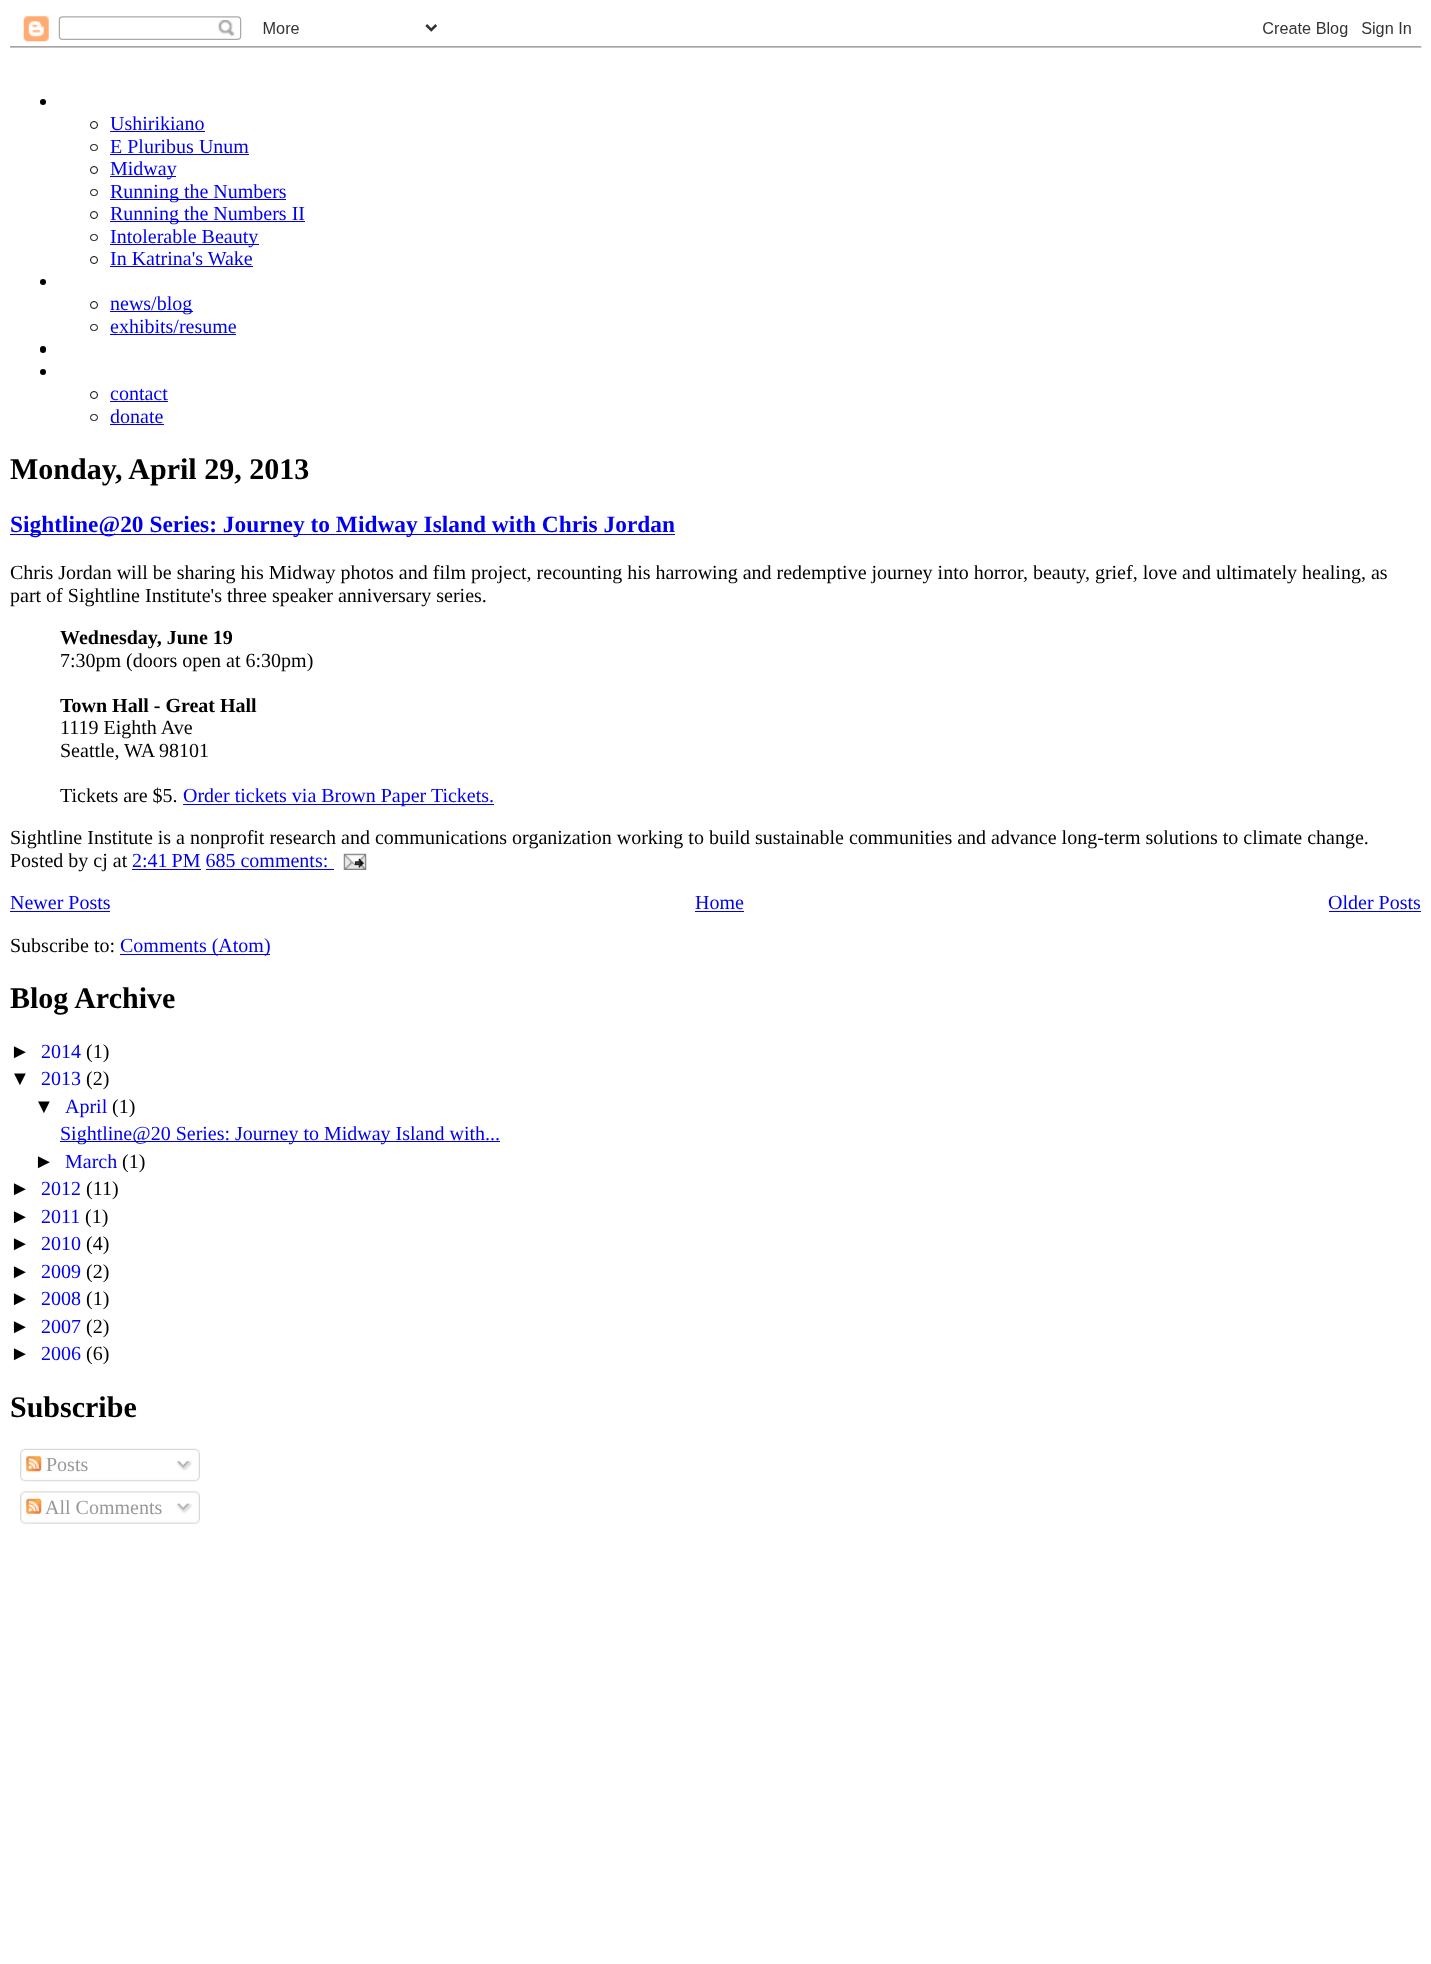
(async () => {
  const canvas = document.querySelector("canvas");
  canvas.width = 1431;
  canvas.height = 1964;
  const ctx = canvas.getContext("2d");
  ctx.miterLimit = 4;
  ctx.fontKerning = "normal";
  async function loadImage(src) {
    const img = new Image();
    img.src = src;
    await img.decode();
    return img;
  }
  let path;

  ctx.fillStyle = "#ffffff";
  ctx.fillRect(0, 0, 1431, 1964);
  ctx.drawImage(await loadImage("img/1.png"), 10, 16, 1412, 32);
  ctx.fillStyle = "#000000";
  ctx.beginPath();
  ctx.arc(43, 102, 3, 0, Math.PI * 2);
  ctx.fill();
  ctx.beginPath();
  ctx.arc(94, 125, 3.5, 0, Math.PI * 2);
  ctx.strokeStyle = "#000000";
  ctx.stroke();
  ctx.fillStyle = "#0000ee";
  ctx.fillRect(110, 131, 95, 1);
  ctx.beginPath();
  ctx.roundRect(90.5, 144.5, 7, 6, 3);
  ctx.stroke();
  ctx.fillRect(110, 154, 139, 1);
  ctx.beginPath();
  ctx.arc(94, 170, 3.5, 0, Math.PI * 2);
  ctx.stroke();
  ctx.fillRect(110, 176, 66, 1);
  ctx.beginPath();
  ctx.roundRect(90.5, 189.5, 7, 6, 3);
  ctx.stroke();
  ctx.fillRect(110, 199, 176, 1);
  ctx.beginPath();
  ctx.arc(94, 215, 3.5, 0, Math.PI * 2);
  ctx.stroke();
  ctx.fillRect(110, 221, 195, 1);
  ctx.beginPath();
  ctx.roundRect(90.5, 234.5, 7, 6, 3);
  ctx.stroke();
  ctx.fillRect(110, 244, 149, 1);
  ctx.beginPath();
  ctx.arc(94, 260, 3.5, 0, Math.PI * 2);
  ctx.stroke();
  ctx.fillRect(110, 266, 143, 1);
  ctx.fillStyle = "#000000";
  ctx.beginPath();
  ctx.arc(43, 282, 3, 0, Math.PI * 2);
  ctx.fill();
  ctx.beginPath();
  ctx.arc(94, 305, 3.5, 0, Math.PI * 2);
  ctx.stroke();
  ctx.fillStyle = "#0000ee";
  ctx.fillRect(110, 311, 83, 1);
  ctx.beginPath();
  ctx.roundRect(90.5, 324.5, 7, 6, 3);
  ctx.stroke();
  ctx.fillRect(110, 334, 126, 1);
  ctx.fillStyle = "#000000";
  ctx.beginPath();
  ctx.roundRect(40, 346, 6, 7, 3);
  ctx.fill();
  ctx.beginPath();
  ctx.arc(43, 372, 3, 0, Math.PI * 2);
  ctx.fill();
  ctx.beginPath();
  ctx.arc(94, 395, 3.5, 0, Math.PI * 2);
  ctx.stroke();
  ctx.fillStyle = "#0000ee";
  ctx.fillRect(110, 401, 58, 1);
  ctx.beginPath();
  ctx.roundRect(90.5, 414.5, 7, 6, 3);
  ctx.stroke();
  for (const [x, y, w, h, color] of [
    [110, 424, 54, 1, "#0000ee"],
    [10, 534, 665, 1, "#0000ee"],
    [183, 804, 311, 1, "#0000ee"],
  ]) {
    ctx.fillStyle = color;
    ctx.fillRect(x, y, w, h);
  }
  path = new Path2D("M132 869.5H200.5");
  ctx.strokeStyle = "#0000ee";
  ctx.lineWidth = 1.2;
  ctx.setLineDash([1.25, 1.25]);
  ctx.stroke(path);
  ctx.fillRect(133, 869, 68, 1);
  ctx.drawImage(await loadImage("img/2.png"), 343, 853, 24, 17);
  for (const [x, y, w, h, color] of [
    [206, 869, 128, 1, "#0000ee"],
    [10, 911, 100, 1, "#0000ee"],
    [695, 911, 49, 1, "#0000ee"],
    [1329, 911, 92, 1, "#0000ee"],
    [120, 954, 150, 1, "#0000ee"],
    [60, 1141, 440, 1, "#0000ee"],
  ]) {
    ctx.fillStyle = color;
    ctx.fillRect(x, y, w, h);
  }
  ctx.drawImage(await loadImage("img/3.png"), 20, 1448, 180, 30);
  ctx.drawImage(await loadImage("img/4.png"), 26, 1456, 16, 16);
  ctx.drawImage(await loadImage("img/5.png"), 176, 1460, 17, 11);
  ctx.drawImage(await loadImage("img/6.png"), 20, 1477, 180, 5);
  ctx.drawImage(await loadImage("img/7.png"), 20, 1491, 180, 29);
  ctx.drawImage(await loadImage("img/8.png"), 26, 1498, 16, 16);
  ctx.drawImage(await loadImage("img/9.png"), 176, 1503, 17, 11);
  ctx.drawImage(await loadImage("img/10.png"), 20, 1520, 180, 4);
  ctx.font = "20px Liberation Serif";
  for (const [text, x, y] of [
    ["Ushirikiano", 110, 130],
    ["E Pluribus Unum", 110, 153],
    ["Midway", 110, 175],
    ["Running the Numbers", 110, 198],
    ["Running the Numbers II", 110, 220],
    ["Intolerable Beauty", 110, 243],
    ["In Katrina's Wake", 110, 265],
    ["news/blog", 110, 310],
    ["exhibits/resume", 110, 333],
    ["contact", 110, 400],
    ["donate", 110, 423],
  ]) {
    ctx.fillText(text, x, y);
  }
  ctx.font = "bold 30px Liberation Serif";
  ctx.fillStyle = "#000000";
  ctx.fillText("Monday, April 29, 2013", 10, 479);
  ctx.font = "bold 23.4px Liberation Serif";
  ctx.fillStyle = "#0000ee";
  ctx.fillText("Sightline@20 Series: Journey to Midway Island with Chris Jordan", 10, 532);
  ctx.font = "20px Liberation Serif";
  ctx.fillStyle = "#000000";
  ctx.fillText("Chris Jordan will be sharing his Midway photos and film project, recounting his harrowing and redemptive journey into horror, beauty, grief, love and ultimately healing, as", 10, 579);
  ctx.fillText("part of Sightline Institute's three speaker anniversary series.", 10, 602);
  ctx.font = "bold 20px Liberation Serif";
  ctx.fillText("Wednesday, June 19", 60, 644);
  ctx.font = "20px Liberation Serif";
  ctx.fillText("7:30pm (doors open at 6:30pm)", 60, 667);
  ctx.font = "bold 20px Liberation Serif";
  ctx.fillText("Town Hall - Great Hall", 60, 712);
  ctx.font = "20px Liberation Serif";
  for (const [text, x, y] of [
    ["1119 Eighth Ave", 60, 734],
    ["Seattle, WA 98101", 60, 757],
    ["Tickets are $5.", 60, 802],
  ]) {
    ctx.fillText(text, x, y);
  }
  ctx.fillStyle = "#0000ee";
  ctx.fillText("Order tickets via Brown Paper Tickets.", 183, 802);
  ctx.fillStyle = "#000000";
  ctx.fillText("Sightline Institute is a nonprofit research and communications organization working to build sustainable communities and advance long-term solutions to climate change.", 10, 844);
  ctx.fillText("Posted by cj at", 10, 867);
  ctx.fillStyle = "#0000ee";
  for (const [text, x, y] of [
    ["2:41 PM 685 comments:", 132, 867],
    ["Newer Posts", 10, 909],
    ["Home", 695, 909],
    ["Older Posts", 1328, 909],
  ]) {
    ctx.fillText(text, x, y);
  }
  ctx.fillStyle = "#000000";
  ctx.fillText("Subscribe to:", 10, 952);
  ctx.fillStyle = "#0000ee";
  ctx.fillText("Comments (Atom)", 120, 952);
  ctx.font = "bold 30px Liberation Serif";
  ctx.fillStyle = "#000000";
  ctx.fillText("Blog Archive", 10, 1008);
  ctx.font = "20px Liberation Sans";
  ctx.fillText("►", 10, 1058);
  ctx.font = "20px Liberation Serif";
  ctx.fillStyle = "#0000ee";
  ctx.fillText("2014", 41, 1058);
  ctx.fillStyle = "#000000";
  ctx.fillText("(1)", 86, 1058);
  ctx.font = "20px Liberation Sans";
  ctx.fillText("▼", 10, 1085);
  ctx.font = "20px Liberation Serif";
  ctx.fillStyle = "#0000ee";
  ctx.fillText("2013", 41, 1085);
  ctx.fillStyle = "#000000";
  ctx.fillText("(2)", 86, 1085);
  ctx.font = "20px Liberation Sans";
  ctx.fillText("▼", 34, 1113);
  ctx.font = "20px Liberation Serif";
  ctx.fillStyle = "#0000ee";
  ctx.fillText("April", 65, 1113);
  ctx.fillStyle = "#000000";
  ctx.fillText("(1)", 112, 1113);
  ctx.fillStyle = "#0000ee";
  ctx.fillText("Sightline@20 Series: Journey to Midway Island with...", 60, 1140);
  ctx.font = "20px Liberation Sans";
  ctx.fillStyle = "#000000";
  ctx.fillText("►", 34, 1168);
  ctx.font = "20px Liberation Serif";
  ctx.fillStyle = "#0000ee";
  ctx.fillText("March", 65, 1168);
  ctx.fillStyle = "#000000";
  ctx.fillText("(1)", 122, 1168);
  ctx.font = "20px Liberation Sans";
  ctx.fillText("►", 10, 1195);
  ctx.font = "20px Liberation Serif";
  ctx.fillStyle = "#0000ee";
  ctx.fillText("2012", 41, 1195);
  ctx.fillStyle = "#000000";
  ctx.fillText("(11)", 86, 1195);
  ctx.font = "20px Liberation Sans";
  ctx.fillText("►", 10, 1223);
  ctx.font = "20px Liberation Serif";
  ctx.fillStyle = "#0000ee";
  ctx.fillText("2011", 41, 1223);
  ctx.fillStyle = "#000000";
  ctx.fillText("(1)", 85, 1223);
  ctx.font = "20px Liberation Sans";
  ctx.fillText("►", 10, 1250);
  ctx.font = "20px Liberation Serif";
  ctx.fillStyle = "#0000ee";
  ctx.fillText("2010", 41, 1250);
  ctx.fillStyle = "#000000";
  ctx.fillText("(4)", 86, 1250);
  ctx.font = "20px Liberation Sans";
  ctx.fillText("►", 10, 1278);
  ctx.font = "20px Liberation Serif";
  ctx.fillStyle = "#0000ee";
  ctx.fillText("2009", 41, 1278);
  ctx.fillStyle = "#000000";
  ctx.fillText("(2)", 86, 1278);
  ctx.font = "20px Liberation Sans";
  ctx.fillText("►", 10, 1305);
  ctx.font = "20px Liberation Serif";
  ctx.fillStyle = "#0000ee";
  ctx.fillText("2008", 41, 1305);
  ctx.fillStyle = "#000000";
  ctx.fillText("(1)", 86, 1305);
  ctx.font = "20px Liberation Sans";
  ctx.fillText("►", 10, 1333);
  ctx.font = "20px Liberation Serif";
  ctx.fillStyle = "#0000ee";
  ctx.fillText("2007", 41, 1333);
  ctx.fillStyle = "#000000";
  ctx.fillText("(2)", 86, 1333);
  ctx.font = "20px Liberation Sans";
  ctx.fillText("►", 10, 1360);
  ctx.font = "20px Liberation Serif";
  ctx.fillStyle = "#0000ee";
  ctx.fillText("2006", 41, 1360);
  ctx.fillStyle = "#000000";
  ctx.fillText("(6)", 86, 1360);
  ctx.font = "bold 30px Liberation Serif";
  ctx.fillText("Subscribe", 10, 1417);
  ctx.font = "20px Liberation Serif";
  ctx.fillStyle = "#999999";
  ctx.fillText("Posts", 46, 1471);
  ctx.fillText("All Comments", 45, 1514);
})();
